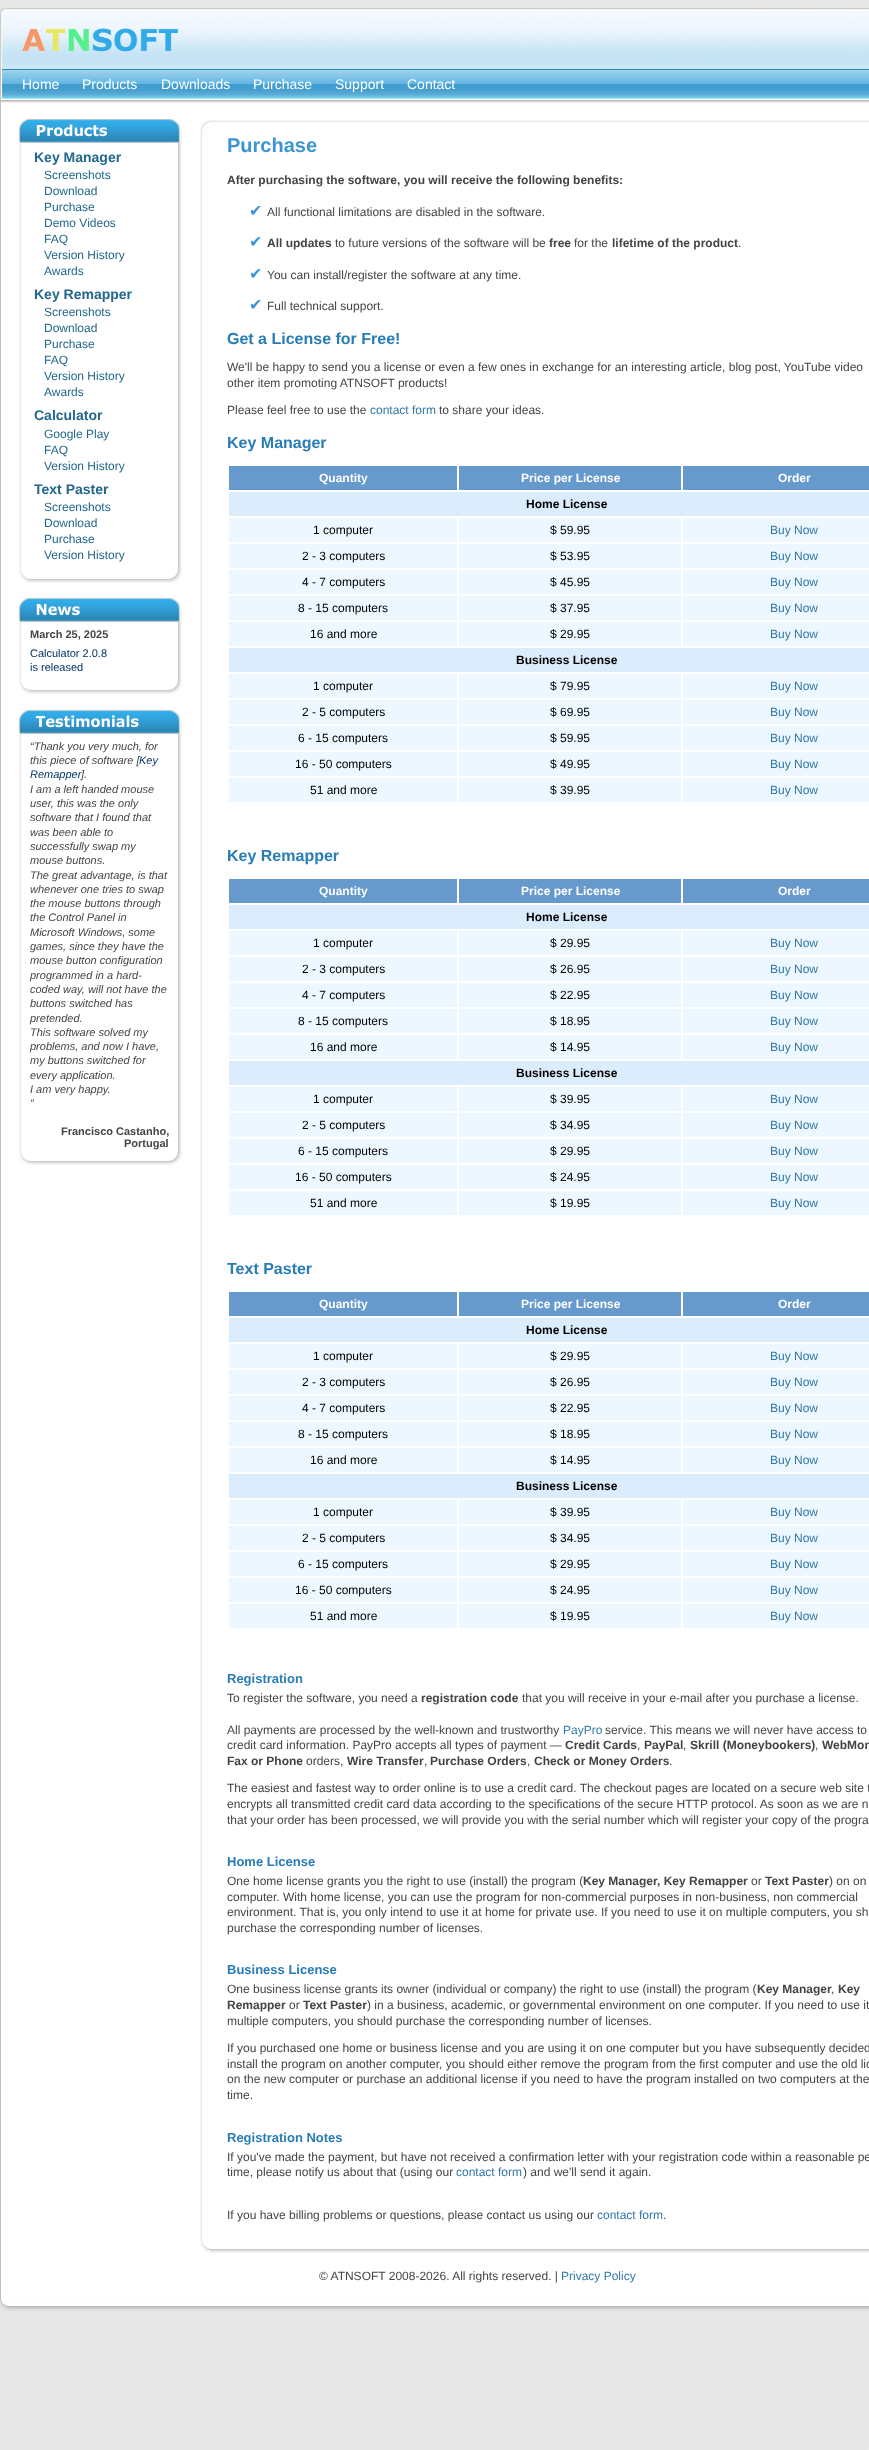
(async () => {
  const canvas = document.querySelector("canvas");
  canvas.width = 869;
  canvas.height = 2450;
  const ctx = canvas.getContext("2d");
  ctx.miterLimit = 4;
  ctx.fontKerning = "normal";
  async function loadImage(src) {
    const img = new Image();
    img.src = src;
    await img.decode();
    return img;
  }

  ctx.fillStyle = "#ffffff";
  ctx.fillRect(0, 0, 869, 2450);
  ctx.drawImage(await loadImage("img/1.png"), 0, 0, 869, 2450);
  ctx.fillRect(0, 8, 869, 2291);
  ctx.drawImage(await loadImage("img/2.png"), 0, 8, 869, 61);
  ctx.drawImage(await loadImage("img/3.png"), 0, 69, 2, 34);
  ctx.drawImage(await loadImage("img/4.png"), 2, 69, 867, 34);
  ctx.fillStyle = "#bebebe";
  ctx.fillRect(0, 103, 1, 2196);
  ctx.drawImage(await loadImage("img/5.png"), 18, 119, 164, 24);
  ctx.drawImage(await loadImage("img/6.png"), 19, 143, 163, 426);
  ctx.drawImage(await loadImage("img/7.png"), 19, 569, 163, 14);
  ctx.drawImage(await loadImage("img/8.png"), 18, 598, 164, 24);
  ctx.drawImage(await loadImage("img/9.png"), 19, 622, 163, 58);
  ctx.drawImage(await loadImage("img/7.png"), 19, 680, 163, 14);
  ctx.drawImage(await loadImage("img/10.png"), 18, 710, 164, 24);
  ctx.drawImage(await loadImage("img/11.png"), 19, 734, 163, 417);
  ctx.drawImage(await loadImage("img/7.png"), 19, 1151, 163, 14);
  ctx.drawImage(await loadImage("img/12.png"), 200, 120, 11, 12);
  ctx.drawImage(await loadImage("img/13.png"), 211, 120, 658, 2);
  ctx.drawImage(await loadImage("img/14.png"), 200, 132, 2, 2108);
  for (const [x, y, w, h, color] of [
    [229, 466, 228, 24, "#6699cc"],
    [459, 466, 222, 24, "#6699cc"],
    [683, 466, 186, 24, "#6699cc"],
    [229, 492, 640, 24, "#dbecfd"],
    [229, 518, 228, 24, "#ecf7ff"],
    [459, 518, 222, 24, "#ecf7ff"],
    [683, 518, 186, 24, "#ecf7ff"],
    [229, 544, 228, 24, "#ecf7ff"],
    [459, 544, 222, 24, "#ecf7ff"],
    [683, 544, 186, 24, "#ecf7ff"],
    [229, 570, 228, 24, "#ecf7ff"],
    [459, 570, 222, 24, "#ecf7ff"],
    [683, 570, 186, 24, "#ecf7ff"],
    [229, 596, 228, 24, "#ecf7ff"],
    [459, 596, 222, 24, "#ecf7ff"],
    [683, 596, 186, 24, "#ecf7ff"],
    [229, 622, 228, 24, "#ecf7ff"],
    [459, 622, 222, 24, "#ecf7ff"],
    [683, 622, 186, 24, "#ecf7ff"],
    [229, 648, 640, 24, "#dbecfd"],
    [229, 674, 228, 24, "#ecf7ff"],
    [459, 674, 222, 24, "#ecf7ff"],
    [683, 674, 186, 24, "#ecf7ff"],
    [229, 700, 228, 24, "#ecf7ff"],
    [459, 700, 222, 24, "#ecf7ff"],
    [683, 700, 186, 24, "#ecf7ff"],
    [229, 726, 228, 24, "#ecf7ff"],
    [459, 726, 222, 24, "#ecf7ff"],
    [683, 726, 186, 24, "#ecf7ff"],
    [229, 752, 228, 24, "#ecf7ff"],
    [459, 752, 222, 24, "#ecf7ff"],
    [683, 752, 186, 24, "#ecf7ff"],
    [229, 778, 228, 24, "#ecf7ff"],
    [459, 778, 222, 24, "#ecf7ff"],
    [683, 778, 186, 24, "#ecf7ff"],
    [229, 879, 228, 24, "#6699cc"],
    [459, 879, 222, 24, "#6699cc"],
    [683, 879, 186, 24, "#6699cc"],
    [229, 905, 640, 24, "#dbecfd"],
    [229, 931, 228, 24, "#ecf7ff"],
    [459, 931, 222, 24, "#ecf7ff"],
    [683, 931, 186, 24, "#ecf7ff"],
    [229, 957, 228, 24, "#ecf7ff"],
    [459, 957, 222, 24, "#ecf7ff"],
    [683, 957, 186, 24, "#ecf7ff"],
    [229, 983, 228, 24, "#ecf7ff"],
    [459, 983, 222, 24, "#ecf7ff"],
    [683, 983, 186, 24, "#ecf7ff"],
    [229, 1009, 228, 24, "#ecf7ff"],
    [459, 1009, 222, 24, "#ecf7ff"],
    [683, 1009, 186, 24, "#ecf7ff"],
    [229, 1035, 228, 24, "#ecf7ff"],
    [459, 1035, 222, 24, "#ecf7ff"],
    [683, 1035, 186, 24, "#ecf7ff"],
    [229, 1061, 640, 24, "#dbecfd"],
    [229, 1087, 228, 24, "#ecf7ff"],
    [459, 1087, 222, 24, "#ecf7ff"],
    [683, 1087, 186, 24, "#ecf7ff"],
    [229, 1113, 228, 24, "#ecf7ff"],
    [459, 1113, 222, 24, "#ecf7ff"],
    [683, 1113, 186, 24, "#ecf7ff"],
    [229, 1139, 228, 24, "#ecf7ff"],
    [459, 1139, 222, 24, "#ecf7ff"],
    [683, 1139, 186, 24, "#ecf7ff"],
    [229, 1165, 228, 24, "#ecf7ff"],
    [459, 1165, 222, 24, "#ecf7ff"],
    [683, 1165, 186, 24, "#ecf7ff"],
    [229, 1191, 228, 24, "#ecf7ff"],
    [459, 1191, 222, 24, "#ecf7ff"],
    [683, 1191, 186, 24, "#ecf7ff"],
    [229, 1292, 228, 24, "#6699cc"],
    [459, 1292, 222, 24, "#6699cc"],
    [683, 1292, 186, 24, "#6699cc"],
    [229, 1318, 640, 24, "#dbecfd"],
    [229, 1344, 228, 24, "#ecf7ff"],
    [459, 1344, 222, 24, "#ecf7ff"],
    [683, 1344, 186, 24, "#ecf7ff"],
    [229, 1370, 228, 24, "#ecf7ff"],
    [459, 1370, 222, 24, "#ecf7ff"],
    [683, 1370, 186, 24, "#ecf7ff"],
    [229, 1396, 228, 24, "#ecf7ff"],
    [459, 1396, 222, 24, "#ecf7ff"],
    [683, 1396, 186, 24, "#ecf7ff"],
    [229, 1422, 228, 24, "#ecf7ff"],
    [459, 1422, 222, 24, "#ecf7ff"],
    [683, 1422, 186, 24, "#ecf7ff"],
    [229, 1448, 228, 24, "#ecf7ff"],
    [459, 1448, 222, 24, "#ecf7ff"],
    [683, 1448, 186, 24, "#ecf7ff"],
    [229, 1474, 640, 24, "#dbecfd"],
    [229, 1500, 228, 24, "#ecf7ff"],
    [459, 1500, 222, 24, "#ecf7ff"],
    [683, 1500, 186, 24, "#ecf7ff"],
    [229, 1526, 228, 24, "#ecf7ff"],
    [459, 1526, 222, 24, "#ecf7ff"],
    [683, 1526, 186, 24, "#ecf7ff"],
    [229, 1552, 228, 24, "#ecf7ff"],
    [459, 1552, 222, 24, "#ecf7ff"],
    [683, 1552, 186, 24, "#ecf7ff"],
    [229, 1578, 228, 24, "#ecf7ff"],
    [459, 1578, 222, 24, "#ecf7ff"],
    [683, 1578, 186, 24, "#ecf7ff"],
    [229, 1604, 228, 24, "#ecf7ff"],
    [459, 1604, 222, 24, "#ecf7ff"],
    [683, 1604, 186, 24, "#ecf7ff"],
  ]) {
    ctx.fillStyle = color;
    ctx.fillRect(x, y, w, h);
  }
  ctx.drawImage(await loadImage("img/15.png"), 200, 2240, 11, 13);
  ctx.drawImage(await loadImage("img/16.png"), 211, 2249, 658, 4);
  ctx.drawImage(await loadImage("img/17.png"), 0, 2299, 869, 13);
  ctx.font = "14px Liberation Sans";
  ctx.fillStyle = "#ffffff";
  for (const [text, x, y] of [
    ["Home", 22, 89],
    ["Products", 82, 89],
    ["Downloads", 161, 89],
    ["Purchase", 253, 89],
    ["Support", 335, 89],
    ["Contact", 407, 89],
  ]) {
    ctx.fillText(text, x, y);
  }
  ctx.font = "bold 14px Liberation Sans";
  ctx.fillStyle = "#22678c";
  ctx.fillText("Key Manager", 34, 162);
  ctx.font = "12px Liberation Sans";
  for (const [text, x, y] of [
    ["Screenshots", 44, 179],
    ["Download", 44, 195],
    ["Purchase", 44, 211],
    ["Demo Videos", 44, 227],
    ["FAQ", 44, 243],
    ["Version History", 44, 259],
    ["Awards", 44, 275],
  ]) {
    ctx.fillText(text, x, y);
  }
  ctx.font = "bold 14px Liberation Sans";
  ctx.fillText("Key Remapper", 34, 299);
  ctx.font = "12px Liberation Sans";
  for (const [text, x, y] of [
    ["Screenshots", 44, 316],
    ["Download", 44, 332],
    ["Purchase", 44, 348],
    ["FAQ", 44, 364],
    ["Version History", 44, 380],
    ["Awards", 44, 396],
  ]) {
    ctx.fillText(text, x, y);
  }
  ctx.font = "bold 14px Liberation Sans";
  ctx.fillText("Calculator", 34, 420);
  ctx.font = "12px Liberation Sans";
  for (const [text, x, y] of [
    ["Google Play", 44, 438],
    ["FAQ", 44, 454],
    ["Version History", 44, 470],
  ]) {
    ctx.fillText(text, x, y);
  }
  ctx.font = "bold 14px Liberation Sans";
  ctx.fillText("Text Paster", 34, 494);
  ctx.font = "12px Liberation Sans";
  for (const [text, x, y] of [
    ["Screenshots", 44, 511],
    ["Download", 44, 527],
    ["Purchase", 44, 543],
    ["Version History", 44, 559],
  ]) {
    ctx.fillText(text, x, y);
  }
  ctx.font = "bold 11px Liberation Sans";
  ctx.fillStyle = "#444444";
  ctx.fillText("March 25, 2025", 30, 638);
  ctx.font = "11px Liberation Sans";
  ctx.fillStyle = "#003366";
  ctx.fillText("Calculator 2.0.8", 30, 657);
  ctx.fillText("is released", 30, 671);
  ctx.font = "italic 11px Liberation Sans";
  ctx.fillStyle = "#444444";
  ctx.fillText("“Thank you very much, for", 30, 750);
  ctx.fillText("this piece of software [", 30, 764);
  ctx.fillStyle = "#003366";
  ctx.fillText("Key", 139, 764);
  ctx.fillText("Remapper", 30, 778);
  ctx.fillStyle = "#444444";
  for (const [text, x, y] of [
    ["].", 81, 778],
    ["I am a left handed mouse", 30, 793],
    ["user, this was the only", 30, 807],
    ["software that I found that", 30, 821],
    ["was been able to", 30, 836],
    ["successfully swap my", 30, 850],
    ["mouse buttons.", 30, 864],
    ["The great advantage, is that", 30, 879],
    ["whenever one tries to swap", 30, 893],
    ["the mouse buttons through", 30, 907],
    ["the Control Panel in", 30, 921],
    ["Microsoft Windows, some", 30, 936],
    ["games, since they have the", 30, 950],
    ["mouse button configuration", 30, 964],
    ["programmed in a hard-", 30, 979],
    ["coded way, will not have the", 30, 993],
    ["buttons switched has", 30, 1007],
    ["pretended.", 30, 1022],
    ["This software solved my", 30, 1036],
    ["problems, and now I have,", 30, 1050],
    ["my buttons switched for", 30, 1064],
    ["every application.", 30, 1079],
    ["I am very happy.", 30, 1093],
    ["”", 30, 1107],
  ]) {
    ctx.fillText(text, x, y);
  }
  ctx.font = "bold 11px Liberation Sans";
  ctx.fillText("Francisco Castanho,", 61, 1135);
  ctx.fillText("Portugal", 124, 1147);
  ctx.font = "bold 20px Liberation Sans";
  ctx.fillStyle = "#3c95d3";
  ctx.fillText("Purchase", 227, 152);
  ctx.font = "bold 12px Liberation Sans";
  ctx.fillStyle = "#444444";
  ctx.fillText("After purchasing the software, you will receive the following benefits:", 227, 184);
  ctx.font = "16px DejaVu Sans";
  ctx.fillStyle = "#3c95d3";
  ctx.fillText("✔", 249, 216);
  ctx.font = "12px Liberation Sans";
  ctx.fillStyle = "#444444";
  ctx.fillText("All functional limitations are disabled in the software.", 267, 216);
  ctx.font = "16px DejaVu Sans";
  ctx.fillStyle = "#3c95d3";
  ctx.fillText("✔", 249, 247);
  ctx.font = "bold 12px Liberation Sans";
  ctx.fillStyle = "#444444";
  ctx.fillText("All updates", 267, 247);
  ctx.font = "12px Liberation Sans";
  ctx.fillText("to future versions of the software will be", 335, 247);
  ctx.font = "bold 12px Liberation Sans";
  ctx.fillText("free", 549, 247);
  ctx.font = "12px Liberation Sans";
  ctx.fillText("for the", 574, 247);
  ctx.font = "bold 12px Liberation Sans";
  ctx.fillText("lifetime of the product", 612, 247);
  ctx.font = "12px Liberation Sans";
  ctx.fillText(".", 738, 247);
  ctx.font = "16px DejaVu Sans";
  ctx.fillStyle = "#3c95d3";
  ctx.fillText("✔", 249, 279);
  ctx.font = "12px Liberation Sans";
  ctx.fillStyle = "#444444";
  ctx.fillText("You can install/register the software at any time.", 267, 279);
  ctx.font = "16px DejaVu Sans";
  ctx.fillStyle = "#3c95d3";
  ctx.fillText("✔", 249, 310);
  ctx.font = "12px Liberation Sans";
  ctx.fillStyle = "#444444";
  ctx.fillText("Full technical support.", 267, 310);
  ctx.font = "bold 16px Liberation Sans";
  ctx.fillStyle = "#287db7";
  ctx.fillText("Get a License for Free!", 227, 344);
  ctx.font = "12px Liberation Sans";
  ctx.fillStyle = "#444444";
  for (const [text, x, y] of [
    ["We'll be happy to send you a license or even a few ones in exchange for an interesting article, blog post, YouTube video", 227, 371],
    ["other item promoting ATNSOFT products!", 227, 387],
    ["Please feel free to use the", 227, 414],
  ]) {
    ctx.fillText(text, x, y);
  }
  ctx.fillStyle = "#3177a7";
  ctx.fillText("contact form", 370, 414);
  ctx.fillStyle = "#444444";
  ctx.fillText("to share your ideas.", 439, 414);
  ctx.font = "bold 16px Liberation Sans";
  ctx.fillStyle = "#287db7";
  ctx.fillText("Key Manager", 227, 448);
  ctx.font = "bold 12px Liberation Sans";
  ctx.fillStyle = "#ffffff";
  for (const [text, x, y] of [
    ["Quantity", 319, 482],
    ["Price per License", 521, 482],
    ["Order", 778, 482],
  ]) {
    ctx.fillText(text, x, y);
  }
  ctx.fillStyle = "#000000";
  ctx.fillText("Home License", 526, 508);
  ctx.font = "12px Liberation Sans";
  ctx.fillText("1 computer", 313, 534);
  ctx.fillText("$ 59.95", 550, 534);
  ctx.fillStyle = "#3177a7";
  ctx.fillText("Buy Now", 770, 534);
  ctx.fillStyle = "#000000";
  ctx.fillText("2 - 3 computers", 302, 560);
  ctx.fillText("$ 53.95", 550, 560);
  ctx.fillStyle = "#3177a7";
  ctx.fillText("Buy Now", 770, 560);
  ctx.fillStyle = "#000000";
  ctx.fillText("4 - 7 computers", 302, 586);
  ctx.fillText("$ 45.95", 550, 586);
  ctx.fillStyle = "#3177a7";
  ctx.fillText("Buy Now", 770, 586);
  ctx.fillStyle = "#000000";
  ctx.fillText("8 - 15 computers", 298, 612);
  ctx.fillText("$ 37.95", 550, 612);
  ctx.fillStyle = "#3177a7";
  ctx.fillText("Buy Now", 770, 612);
  ctx.fillStyle = "#000000";
  ctx.fillText("16 and more", 310, 638);
  ctx.fillText("$ 29.95", 550, 638);
  ctx.fillStyle = "#3177a7";
  ctx.fillText("Buy Now", 770, 638);
  ctx.font = "bold 12px Liberation Sans";
  ctx.fillStyle = "#000000";
  ctx.fillText("Business License", 516, 664);
  ctx.font = "12px Liberation Sans";
  ctx.fillText("1 computer", 313, 690);
  ctx.fillText("$ 79.95", 550, 690);
  ctx.fillStyle = "#3177a7";
  ctx.fillText("Buy Now", 770, 690);
  ctx.fillStyle = "#000000";
  ctx.fillText("2 - 5 computers", 302, 716);
  ctx.fillText("$ 69.95", 550, 716);
  ctx.fillStyle = "#3177a7";
  ctx.fillText("Buy Now", 770, 716);
  ctx.fillStyle = "#000000";
  ctx.fillText("6 - 15 computers", 298, 742);
  ctx.fillText("$ 59.95", 550, 742);
  ctx.fillStyle = "#3177a7";
  ctx.fillText("Buy Now", 770, 742);
  ctx.fillStyle = "#000000";
  ctx.fillText("16 - 50 computers", 295, 768);
  ctx.fillText("$ 49.95", 550, 768);
  ctx.fillStyle = "#3177a7";
  ctx.fillText("Buy Now", 770, 768);
  ctx.fillStyle = "#000000";
  ctx.fillText("51 and more", 310, 794);
  ctx.fillText("$ 39.95", 550, 794);
  ctx.fillStyle = "#3177a7";
  ctx.fillText("Buy Now", 770, 794);
  ctx.font = "bold 16px Liberation Sans";
  ctx.fillStyle = "#287db7";
  ctx.fillText("Key Remapper", 227, 861);
  ctx.font = "bold 12px Liberation Sans";
  ctx.fillStyle = "#ffffff";
  for (const [text, x, y] of [
    ["Quantity", 319, 895],
    ["Price per License", 521, 895],
    ["Order", 778, 895],
  ]) {
    ctx.fillText(text, x, y);
  }
  ctx.fillStyle = "#000000";
  ctx.fillText("Home License", 526, 921);
  ctx.font = "12px Liberation Sans";
  ctx.fillText("1 computer", 313, 947);
  ctx.fillText("$ 29.95", 550, 947);
  ctx.fillStyle = "#3177a7";
  ctx.fillText("Buy Now", 770, 947);
  ctx.fillStyle = "#000000";
  ctx.fillText("2 - 3 computers", 302, 973);
  ctx.fillText("$ 26.95", 550, 973);
  ctx.fillStyle = "#3177a7";
  ctx.fillText("Buy Now", 770, 973);
  ctx.fillStyle = "#000000";
  ctx.fillText("4 - 7 computers", 302, 999);
  ctx.fillText("$ 22.95", 550, 999);
  ctx.fillStyle = "#3177a7";
  ctx.fillText("Buy Now", 770, 999);
  ctx.fillStyle = "#000000";
  ctx.fillText("8 - 15 computers", 298, 1025);
  ctx.fillText("$ 18.95", 550, 1025);
  ctx.fillStyle = "#3177a7";
  ctx.fillText("Buy Now", 770, 1025);
  ctx.fillStyle = "#000000";
  ctx.fillText("16 and more", 310, 1051);
  ctx.fillText("$ 14.95", 550, 1051);
  ctx.fillStyle = "#3177a7";
  ctx.fillText("Buy Now", 770, 1051);
  ctx.font = "bold 12px Liberation Sans";
  ctx.fillStyle = "#000000";
  ctx.fillText("Business License", 516, 1077);
  ctx.font = "12px Liberation Sans";
  ctx.fillText("1 computer", 313, 1103);
  ctx.fillText("$ 39.95", 550, 1103);
  ctx.fillStyle = "#3177a7";
  ctx.fillText("Buy Now", 770, 1103);
  ctx.fillStyle = "#000000";
  ctx.fillText("2 - 5 computers", 302, 1129);
  ctx.fillText("$ 34.95", 550, 1129);
  ctx.fillStyle = "#3177a7";
  ctx.fillText("Buy Now", 770, 1129);
  ctx.fillStyle = "#000000";
  ctx.fillText("6 - 15 computers", 298, 1155);
  ctx.fillText("$ 29.95", 550, 1155);
  ctx.fillStyle = "#3177a7";
  ctx.fillText("Buy Now", 770, 1155);
  ctx.fillStyle = "#000000";
  ctx.fillText("16 - 50 computers", 295, 1181);
  ctx.fillText("$ 24.95", 550, 1181);
  ctx.fillStyle = "#3177a7";
  ctx.fillText("Buy Now", 770, 1181);
  ctx.fillStyle = "#000000";
  ctx.fillText("51 and more", 310, 1207);
  ctx.fillText("$ 19.95", 550, 1207);
  ctx.fillStyle = "#3177a7";
  ctx.fillText("Buy Now", 770, 1207);
  ctx.font = "bold 16px Liberation Sans";
  ctx.fillStyle = "#287db7";
  ctx.fillText("Text Paster", 227, 1274);
  ctx.font = "bold 12px Liberation Sans";
  ctx.fillStyle = "#ffffff";
  for (const [text, x, y] of [
    ["Quantity", 319, 1308],
    ["Price per License", 521, 1308],
    ["Order", 778, 1308],
  ]) {
    ctx.fillText(text, x, y);
  }
  ctx.fillStyle = "#000000";
  ctx.fillText("Home License", 526, 1334);
  ctx.font = "12px Liberation Sans";
  ctx.fillText("1 computer", 313, 1360);
  ctx.fillText("$ 29.95", 550, 1360);
  ctx.fillStyle = "#3177a7";
  ctx.fillText("Buy Now", 770, 1360);
  ctx.fillStyle = "#000000";
  ctx.fillText("2 - 3 computers", 302, 1386);
  ctx.fillText("$ 26.95", 550, 1386);
  ctx.fillStyle = "#3177a7";
  ctx.fillText("Buy Now", 770, 1386);
  ctx.fillStyle = "#000000";
  ctx.fillText("4 - 7 computers", 302, 1412);
  ctx.fillText("$ 22.95", 550, 1412);
  ctx.fillStyle = "#3177a7";
  ctx.fillText("Buy Now", 770, 1412);
  ctx.fillStyle = "#000000";
  ctx.fillText("8 - 15 computers", 298, 1438);
  ctx.fillText("$ 18.95", 550, 1438);
  ctx.fillStyle = "#3177a7";
  ctx.fillText("Buy Now", 770, 1438);
  ctx.fillStyle = "#000000";
  ctx.fillText("16 and more", 310, 1464);
  ctx.fillText("$ 14.95", 550, 1464);
  ctx.fillStyle = "#3177a7";
  ctx.fillText("Buy Now", 770, 1464);
  ctx.font = "bold 12px Liberation Sans";
  ctx.fillStyle = "#000000";
  ctx.fillText("Business License", 516, 1490);
  ctx.font = "12px Liberation Sans";
  ctx.fillText("1 computer", 313, 1516);
  ctx.fillText("$ 39.95", 550, 1516);
  ctx.fillStyle = "#3177a7";
  ctx.fillText("Buy Now", 770, 1516);
  ctx.fillStyle = "#000000";
  ctx.fillText("2 - 5 computers", 302, 1542);
  ctx.fillText("$ 34.95", 550, 1542);
  ctx.fillStyle = "#3177a7";
  ctx.fillText("Buy Now", 770, 1542);
  ctx.fillStyle = "#000000";
  ctx.fillText("6 - 15 computers", 298, 1568);
  ctx.fillText("$ 29.95", 550, 1568);
  ctx.fillStyle = "#3177a7";
  ctx.fillText("Buy Now", 770, 1568);
  ctx.fillStyle = "#000000";
  ctx.fillText("16 - 50 computers", 295, 1594);
  ctx.fillText("$ 24.95", 550, 1594);
  ctx.fillStyle = "#3177a7";
  ctx.fillText("Buy Now", 770, 1594);
  ctx.fillStyle = "#000000";
  ctx.fillText("51 and more", 310, 1620);
  ctx.fillText("$ 19.95", 550, 1620);
  ctx.fillStyle = "#3177a7";
  ctx.fillText("Buy Now", 770, 1620);
  ctx.font = "bold 13px Liberation Sans";
  ctx.fillStyle = "#287db7";
  ctx.fillText("Registration", 227, 1683);
  ctx.font = "12px Liberation Sans";
  ctx.fillStyle = "#444444";
  ctx.fillText("To register the software, you need a", 227, 1702);
  ctx.font = "bold 12px Liberation Sans";
  ctx.fillText("registration code", 421, 1702);
  ctx.font = "12px Liberation Sans";
  ctx.fillText("that you will receive in your e-mail after you purchase a license.", 522, 1702);
  ctx.fillText("All payments are processed by the well-known and trustworthy", 227, 1734);
  ctx.fillStyle = "#3177a7";
  ctx.fillText("PayPro", 563, 1734);
  ctx.fillStyle = "#444444";
  ctx.fillText("service. This means we will never have access to", 605, 1734);
  ctx.fillText("credit card information. PayPro accepts all types of payment —", 227, 1749);
  ctx.font = "bold 12px Liberation Sans";
  ctx.fillText("Credit Cards", 565, 1749);
  ctx.font = "12px Liberation Sans";
  ctx.fillText(",", 637, 1749);
  ctx.font = "bold 12px Liberation Sans";
  ctx.fillText("PayPal", 644, 1749);
  ctx.font = "12px Liberation Sans";
  ctx.fillText(",", 683, 1749);
  ctx.font = "bold 12px Liberation Sans";
  ctx.fillText("Skrill (Moneybookers)", 690, 1749);
  ctx.font = "12px Liberation Sans";
  ctx.fillText(",", 815, 1749);
  ctx.font = "bold 12px Liberation Sans";
  ctx.fillText("WebMon", 822, 1749);
  ctx.fillText("Fax or Phone", 227, 1765);
  ctx.font = "12px Liberation Sans";
  ctx.fillText("orders,", 306, 1765);
  ctx.font = "bold 12px Liberation Sans";
  ctx.fillText("Wire Transfer", 347, 1765);
  ctx.font = "12px Liberation Sans";
  ctx.fillText(",", 424, 1765);
  ctx.font = "bold 12px Liberation Sans";
  ctx.fillText("Purchase Orders", 430, 1765);
  ctx.font = "12px Liberation Sans";
  ctx.fillText(",", 527, 1765);
  ctx.font = "bold 12px Liberation Sans";
  ctx.fillText("Check or Money Orders", 534, 1765);
  ctx.font = "12px Liberation Sans";
  for (const [text, x, y] of [
    [".", 669, 1765],
    ["The easiest and fastest way to order online is to use a credit card. The checkout pages are located on a secure web site t", 227, 1792],
    ["encrypts all transmitted credit card data according to the specifications of the secure HTTP protocol. As soon as we are n", 227, 1808],
    ["that your order has been processed, we will provide you with the serial number which will register your copy of the progra", 227, 1824],
  ]) {
    ctx.fillText(text, x, y);
  }
  ctx.font = "bold 13px Liberation Sans";
  ctx.fillStyle = "#287db7";
  ctx.fillText("Home License", 227, 1866);
  ctx.font = "12px Liberation Sans";
  ctx.fillStyle = "#444444";
  ctx.fillText("One home license grants you the right to use (install) the program (", 227, 1885);
  ctx.font = "bold 12px Liberation Sans";
  ctx.fillText("Key Manager, Key Remapper", 583, 1885);
  ctx.font = "12px Liberation Sans";
  ctx.fillText("or", 751, 1885);
  ctx.font = "bold 12px Liberation Sans";
  ctx.fillText("Text Paster", 765, 1885);
  ctx.font = "12px Liberation Sans";
  for (const [text, x, y] of [
    [") on on", 829, 1885],
    ["computer. With home license, you can use the program for non-commercial purposes in non-business, non commercial", 227, 1901],
    ["environment. That is, you only intend to use it at home for private use. If you need to use it on multiple computers, you sh", 227, 1916],
    ["purchase the corresponding number of licenses.", 227, 1932],
  ]) {
    ctx.fillText(text, x, y);
  }
  ctx.font = "bold 13px Liberation Sans";
  ctx.fillStyle = "#287db7";
  ctx.fillText("Business License", 227, 1974);
  ctx.font = "12px Liberation Sans";
  ctx.fillStyle = "#444444";
  ctx.fillText("One business license grants its owner (individual or company) the right to use (install) the program (", 227, 1993);
  ctx.font = "bold 12px Liberation Sans";
  ctx.fillText("Key Manager", 757, 1993);
  ctx.font = "12px Liberation Sans";
  ctx.fillText(",", 831, 1993);
  ctx.font = "bold 12px Liberation Sans";
  ctx.fillText("Key", 838, 1993);
  ctx.fillText("Remapper", 227, 2009);
  ctx.font = "12px Liberation Sans";
  ctx.fillText("or", 289, 2009);
  ctx.font = "bold 12px Liberation Sans";
  ctx.fillText("Text Paster", 303, 2009);
  ctx.font = "12px Liberation Sans";
  for (const [text, x, y] of [
    [") in a business, academic, or governmental environment on one computer. If you need to use it", 367, 2009],
    ["multiple computers, you should purchase the corresponding number of licenses.", 227, 2025],
    ["If you purchased one home or business license and you are using it on one computer but you have subsequently decided", 227, 2052],
    ["install the program on another computer, you should either remove the program from the first computer and use the old lic", 227, 2068],
    ["on the new computer or purchase an additional license if you need to have the program installed on two computers at the", 227, 2083],
    ["time.", 227, 2099],
  ]) {
    ctx.fillText(text, x, y);
  }
  ctx.font = "bold 13px Liberation Sans";
  ctx.fillStyle = "#287db7";
  ctx.fillText("Registration Notes", 227, 2142);
  ctx.font = "12px Liberation Sans";
  ctx.fillStyle = "#444444";
  ctx.fillText("If you've made the payment, but have not received a confirmation letter with your registration code within a reasonable pe", 227, 2161);
  ctx.fillText("time, please notify us about that (using our", 227, 2176);
  ctx.fillStyle = "#3177a7";
  ctx.fillText("contact form", 456, 2176);
  ctx.fillStyle = "#444444";
  ctx.fillText(") and we'll send it again.", 523, 2176);
  ctx.fillText("If you have billing problems or questions, please contact us using our", 227, 2219);
  ctx.fillStyle = "#3177a7";
  ctx.fillText("contact form", 597, 2219);
  ctx.fillStyle = "#444444";
  ctx.fillText(".", 663, 2219);
  ctx.fillText("© ATNSOFT 2008-2026. All rights reserved. |", 319, 2280);
  ctx.fillStyle = "#3177a7";
  ctx.fillText("Privacy Policy", 561, 2280);
})();
